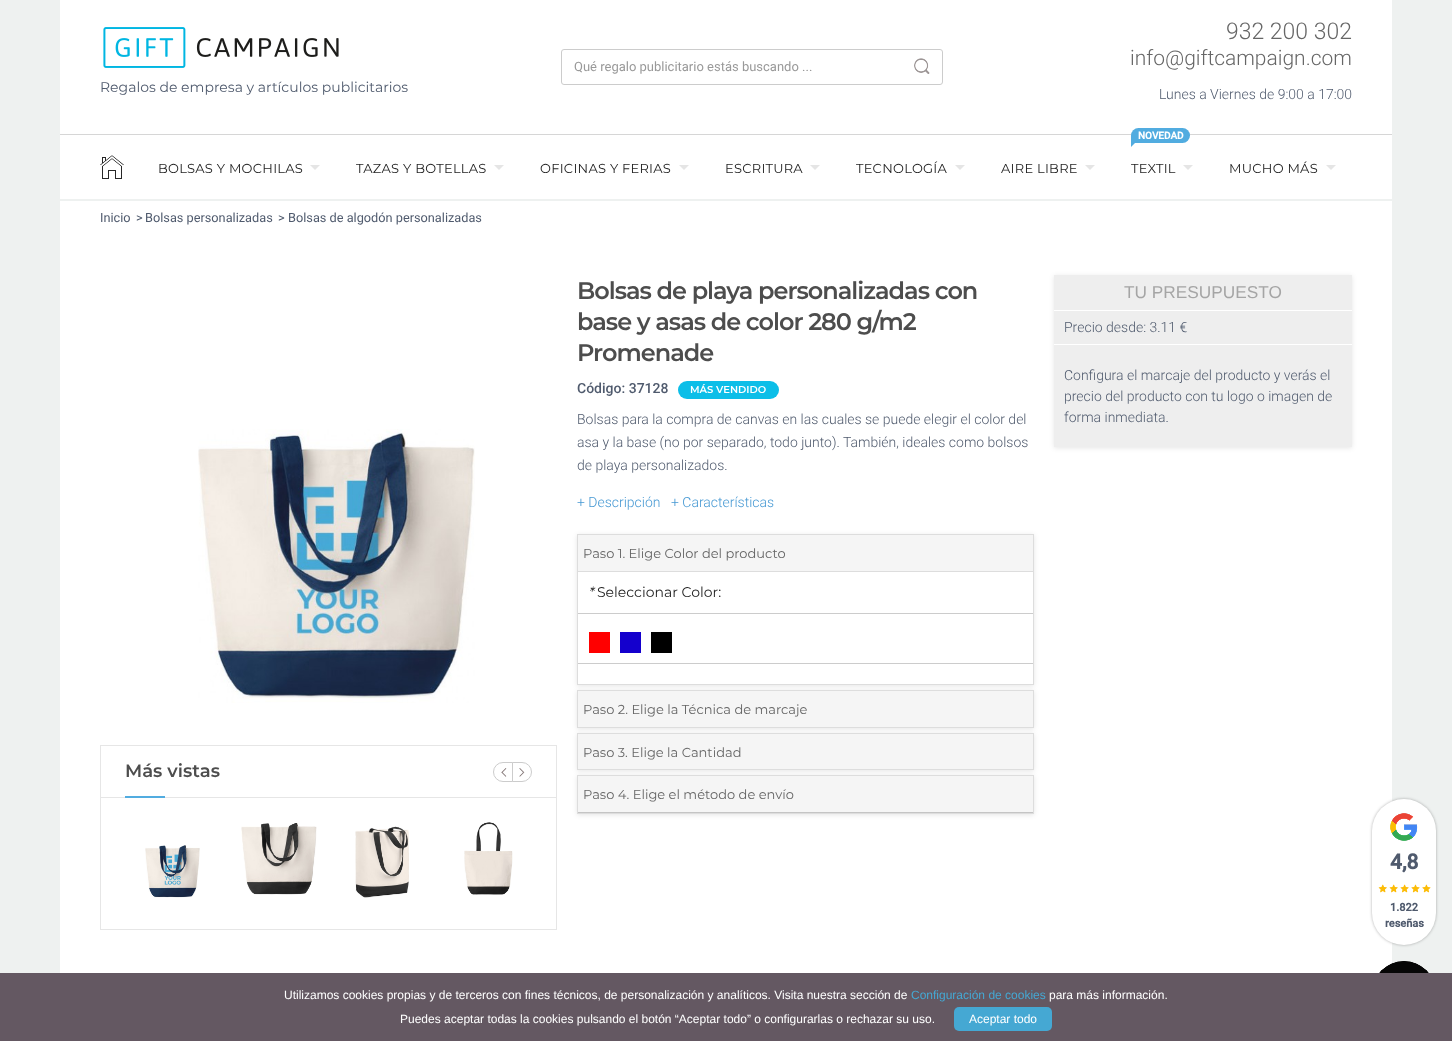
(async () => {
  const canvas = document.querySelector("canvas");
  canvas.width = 1452;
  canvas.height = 1041;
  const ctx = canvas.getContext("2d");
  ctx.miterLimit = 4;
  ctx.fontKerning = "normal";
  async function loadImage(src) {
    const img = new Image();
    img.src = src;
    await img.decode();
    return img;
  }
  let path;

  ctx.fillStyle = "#eef1f0";
  ctx.fillRect(0, 0, 1452, 1041);
  ctx.fillStyle = "#ffffff";
  ctx.fillRect(60, 0, 1332, 134);
  ctx.fillStyle = "#d6d6d6";
  ctx.fillRect(60, 134, 1332, 1);
  ctx.beginPath();
  ctx.roundRect(561.5, 49.5, 381, 35, 2.5);
  ctx.strokeStyle = "#cccccc";
  ctx.stroke();
  ctx.drawImage(await loadImage("img/1.png"), 914, 58, 16, 16);
  ctx.drawImage(await loadImage("img/2.png"), 103, 27, 236, 41);
  ctx.fillStyle = "#ffffff";
  ctx.fillRect(60, 135, 1332, 64);
  ctx.drawImage(await loadImage("img/3.png"), 100, 155, 24, 24);
  ctx.fillStyle = "#e5e5e5";
  path = new Path2D("M310 165H320L315 170Z");
  ctx.fill(path);
  path = new Path2D("M494 165H504L499 170Z");
  ctx.fill(path);
  path = new Path2D("M679 165H689L684 170Z");
  ctx.fill(path);
  path = new Path2D("M810 165H820L815 170Z");
  ctx.fill(path);
  path = new Path2D("M955 165H965L960 170Z");
  ctx.fill(path);
  path = new Path2D("M1085 165H1095L1090 170Z");
  ctx.fill(path);
  ctx.fillStyle = "#51ace0";
  ctx.beginPath();
  ctx.roundRect(1131, 128, 59, 15, [7.5, 7.5, 7.5, 0]);
  ctx.fill();
  ctx.fillStyle = "#e5e5e5";
  path = new Path2D("M1183 165H1193L1188 170Z");
  ctx.fill(path);
  path = new Path2D("M1326 165H1336L1331 170Z");
  ctx.fill(path);
  ctx.fillStyle = "#ffffff";
  ctx.fillRect(60, 201, 1332, 772);
  ctx.drawImage(await loadImage("img/4.png"), 198, 429, 277, 274);
  ctx.strokeStyle = "#e6e6e6";
  ctx.strokeRect(100.5, 745.5, 456, 184);
  ctx.fillStyle = "#e6e6e6";
  ctx.fillRect(101, 797, 455, 1);
  ctx.fillStyle = "#51ace0";
  ctx.fillRect(125, 796, 40, 2);
  ctx.beginPath();
  ctx.roundRect(493.5, 762.5, 19, 19, [9.5, 0, 0, 9.5]);
  ctx.strokeStyle = "#cccccc";
  ctx.stroke();
  ctx.drawImage(await loadImage("img/5.png"), 501, 768, 6, 9);
  ctx.fillStyle = "#ffffff";
  ctx.beginPath();
  ctx.roundRect(512.5, 762.5, 19, 19, [0, 9.5, 9.5, 0]);
  ctx.fill();
  ctx.stroke();
  ctx.drawImage(await loadImage("img/6.png"), 519, 768, 6, 9);
  ctx.drawImage(await loadImage("img/7.png"), 145, 845, 55, 53);
  ctx.drawImage(await loadImage("img/8.png"), 241, 823, 76, 72);
  ctx.drawImage(await loadImage("img/9.png"), 355, 826, 54, 72);
  ctx.drawImage(await loadImage("img/10.png"), 464, 822, 49, 73);
  ctx.fillStyle = "#0cbee8";
  ctx.beginPath();
  ctx.roundRect(678, 381, 101, 18, 9);
  ctx.fill();
  ctx.save();
  path = new Path2D("M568 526H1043V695H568ZM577 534H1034V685H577Z");
  ctx.clip(path, "evenodd");
  ctx.fillStyle = "rgba(0, 0, 0, 0.1)";
  ctx.filter = "blur(2.5px)";
  ctx.beginPath();
  ctx.rect(577, 535, 457, 151);
  ctx.fill();
  ctx.filter = "none";
  ctx.restore();
  ctx.strokeStyle = "#dddddd";
  ctx.strokeRect(577.5, 534.5, 456, 150);
  for (const [x, y, w, h, color] of [
    [578, 535, 455, 36, "#f5f5f5"],
    [578, 571, 455, 1, "#dddddd"],
    [578, 613, 455, 1, "#cccccc"],
    [578, 663, 455, 1, "#cccccc"],
    [589, 632, 21, 21, "#ff0000"],
    [620, 632, 21, 21, "#1400cd"],
    [651, 632, 21, 21, "#000000"],
  ]) {
    ctx.fillStyle = color;
    ctx.fillRect(x, y, w, h);
  }
  ctx.fillStyle = "rgba(0, 0, 0, 0.1)";
  ctx.filter = "blur(2.5px)";
  ctx.beginPath();
  ctx.rect(577, 691, 457, 38);
  ctx.fill();
  ctx.filter = "none";
  ctx.strokeRect(577.5, 690.5, 456, 37);
  ctx.fillStyle = "#f5f5f5";
  ctx.fillRect(578, 691, 455, 36);
  ctx.fillStyle = "rgba(0, 0, 0, 0.1)";
  ctx.filter = "blur(2.5px)";
  ctx.beginPath();
  ctx.rect(577, 734, 457, 37);
  ctx.fill();
  ctx.filter = "none";
  ctx.strokeRect(577.5, 733.5, 456, 36);
  ctx.fillStyle = "#f5f5f5";
  ctx.fillRect(578, 734, 455, 35);
  ctx.fillStyle = "rgba(0, 0, 0, 0.1)";
  ctx.filter = "blur(2.5px)";
  ctx.beginPath();
  ctx.rect(577, 776, 457, 39);
  ctx.fill();
  ctx.filter = "none";
  ctx.strokeRect(577.5, 775.5, 456, 38);
  ctx.fillStyle = "#f5f5f5";
  ctx.fillRect(578, 776, 455, 36);
  ctx.fillStyle = "#c4c4c4";
  ctx.fillRect(578, 812, 455, 1);
  ctx.fillStyle = "rgba(0, 0, 0, 0.1)";
  ctx.filter = "blur(2.5px)";
  ctx.beginPath();
  ctx.rect(1054, 276, 298, 172);
  ctx.fill();
  ctx.filter = "none";
  for (const [x, y, w, h, color] of [
    [1054, 275, 298, 172, "#eeeeee"],
    [1054, 310, 298, 1, "#ffffff"],
    [1054, 344, 298, 1, "#ffffff"],
  ]) {
    ctx.fillStyle = color;
    ctx.fillRect(x, y, w, h);
  }
  ctx.fillStyle = "rgba(0, 0, 0, 0.3)";
  ctx.filter = "blur(1.5px)";
  ctx.beginPath();
  ctx.roundRect(1372, 799, 64, 146, 32);
  ctx.fill();
  ctx.filter = "none";
  ctx.fillStyle = "#ffffff";
  ctx.beginPath();
  ctx.roundRect(1372, 799, 64, 146, 32);
  ctx.fill();
  ctx.drawImage(await loadImage("img/11.png"), 1390, 813, 28, 28);
  ctx.drawImage(await loadImage("img/12.png"), 1378, 884, 53, 9);
  ctx.drawImage(await loadImage("img/13.png"), 1379, 961, 50, 12);
  ctx.fillStyle = "#645862";
  ctx.fillRect(0, 973, 1452, 68);
  ctx.fillStyle = "#45a8d3";
  ctx.beginPath();
  ctx.roundRect(954, 1007, 98, 24, 5);
  ctx.fill();
  ctx.font = "13px Roboto";
  ctx.fillStyle = "#999999";
  ctx.fillText("Qué regalo publicitario estás buscando ...", 574, 71);
  ctx.font = "300 23px Roboto";
  ctx.fillStyle = "#666666";
  ctx.fillText("932 200 302", 1226, 39);
  ctx.font = "300 21px Roboto";
  ctx.fillText("info@giftcampaign.com", 1130, 65);
  ctx.font = "300 14px Roboto";
  ctx.fillStyle = "#4f5a6d";
  ctx.fillText("Lunes a Viernes de 9:00 a 17:00", 1159, 99);
  ctx.font = "14px Montserrat";
  ctx.fillText("Regalos de empresa y artículos publicitarios", 100, 92);
  ctx.letterSpacing = "0.25px";
  ctx.font = "13px Montserrat";
  ctx.fillStyle = "#242424";
  for (const [text, x, y] of [
    ["BOLSAS Y MOCHILAS", 158, 173],
    ["TAZAS Y BOTELLAS", 356, 173],
    ["OFICINAS Y FERIAS", 540, 173],
    ["ESCRITURA", 725, 173],
    ["TECNOLOGÍA", 856, 173],
    ["AIRE LIBRE", 1001, 173],
  ]) {
    ctx.fillText(text, x, y);
  }
  ctx.letterSpacing = "0px";
  ctx.font = "bold 10px Roboto";
  ctx.fillStyle = "#ffffff";
  ctx.fillText("NOVEDAD", 1138, 139);
  ctx.fillStyle = "#51ace0";
  path = new Path2D("M1131 139H1139L1131 147Z");
  ctx.fill(path);
  ctx.letterSpacing = "0.25px";
  ctx.font = "13px Montserrat";
  ctx.fillStyle = "#242424";
  ctx.fillText("TEXTIL", 1131, 173);
  ctx.fillText("MUCHO MÁS", 1229, 173);
  ctx.letterSpacing = "0px";
  ctx.font = "12.75px Roboto";
  ctx.fillStyle = "#4f5a6d";
  for (const [text, x, y] of [
    ["Inicio", 100, 222],
    [">", 136, 222],
    ["Bolsas personalizadas", 145, 222],
    [">", 278, 222],
    ["Bolsas de algodón personalizadas", 288, 222],
  ]) {
    ctx.fillText(text, x, y);
  }
  ctx.font = "600 18px Montserrat";
  ctx.fillStyle = "#4d4d4d";
  ctx.fillText("Más vistas", 125, 777);
  ctx.letterSpacing = "-1px";
  ctx.font = "600 24px Montserrat";
  for (const [text, x, y] of [
    ["Bolsas de playa personalizadas con", 577, 299],
    ["base y asas de color 280 g/m2", 577, 330],
    ["Promenade", 577, 361],
  ]) {
    ctx.fillText(text, x, y);
  }
  ctx.letterSpacing = "0px";
  ctx.font = "500 14px Roboto";
  ctx.fillStyle = "#4f5a6d";
  ctx.fillText("Código: 37128", 577, 393);
  ctx.font = "600 10px Montserrat";
  ctx.fillStyle = "#ffffff";
  ctx.fillText("MÁS VENDIDO", 690, 393);
  ctx.font = "300 14px Roboto";
  ctx.fillStyle = "#4f5a6d";
  for (const [text, x, y] of [
    ["Bolsas para la compra de canvas en las cuales se puede elegir el color del", 577, 424],
    ["asa y la base (no por separado, todo junto). También, ideales como bolsos", 577, 447],
    ["de playa personalizados.", 577, 470],
  ]) {
    ctx.fillText(text, x, y);
  }
  ctx.fillStyle = "#4598d3";
  ctx.fillText("+ Descripción", 577, 507);
  ctx.fillText("+ Características", 671, 507);
  ctx.font = "13px Montserrat";
  ctx.fillStyle = "#666666";
  ctx.fillText("Paso 1. Elige Color del producto", 583, 558);
  ctx.font = "italic 14px Montserrat";
  ctx.fillStyle = "#242424";
  ctx.fillText("*", 588, 597);
  ctx.font = "14px Montserrat";
  ctx.fillText("Seleccionar Color:", 597, 597);
  ctx.font = "13px Montserrat";
  ctx.fillStyle = "#666666";
  for (const [text, x, y] of [
    ["Paso 2. Elige la Técnica de marcaje", 583, 714],
    ["Paso 3. Elige la Cantidad", 583, 757],
    ["Paso 4. Elige el método de envío", 583, 799],
  ]) {
    ctx.fillText(text, x, y);
  }
  ctx.font = "17.25px Liberation Sans";
  ctx.fillStyle = "#a5a5a5";
  ctx.fillText("TU PRESUPUESTO", 1124, 298);
  ctx.font = "300 14px Roboto";
  ctx.fillStyle = "#4f5a6d";
  for (const [text, x, y] of [
    ["Precio desde: 3.11 €", 1064, 332],
    ["Configura el marcaje del producto y verás el", 1064, 380],
    ["precio del producto con tu logo o imagen de", 1064, 401],
    ["forma inmediata.", 1064, 422],
  ]) {
    ctx.fillText(text, x, y);
  }
  ctx.font = "bold 21px Roboto";
  ctx.fillText("4,8", 1390, 869);
  ctx.font = "bold 11px Roboto";
  ctx.fillText("1.822", 1390, 911);
  ctx.fillText("reseñas", 1385, 927);
  ctx.font = "12px Liberation Sans";
  ctx.fillStyle = "#ffffff";
  ctx.fillText("Utilizamos cookies propias y de terceros con fines técnicos, de personalización y analíticos. Visita nuestra sección de", 284, 999);
  ctx.fillStyle = "#45a8d3";
  ctx.fillText("Configuración de cookies", 911, 999);
  ctx.fillStyle = "#ffffff";
  for (const [text, x, y] of [
    ["para más información.", 1049, 999],
    ["Puedes aceptar todas la cookies pulsando el botón “Aceptar todo” o configurarlas o rechazar su uso.", 400, 1023],
    ["Aceptar todo", 969, 1023],
  ]) {
    ctx.fillText(text, x, y);
  }
})();
